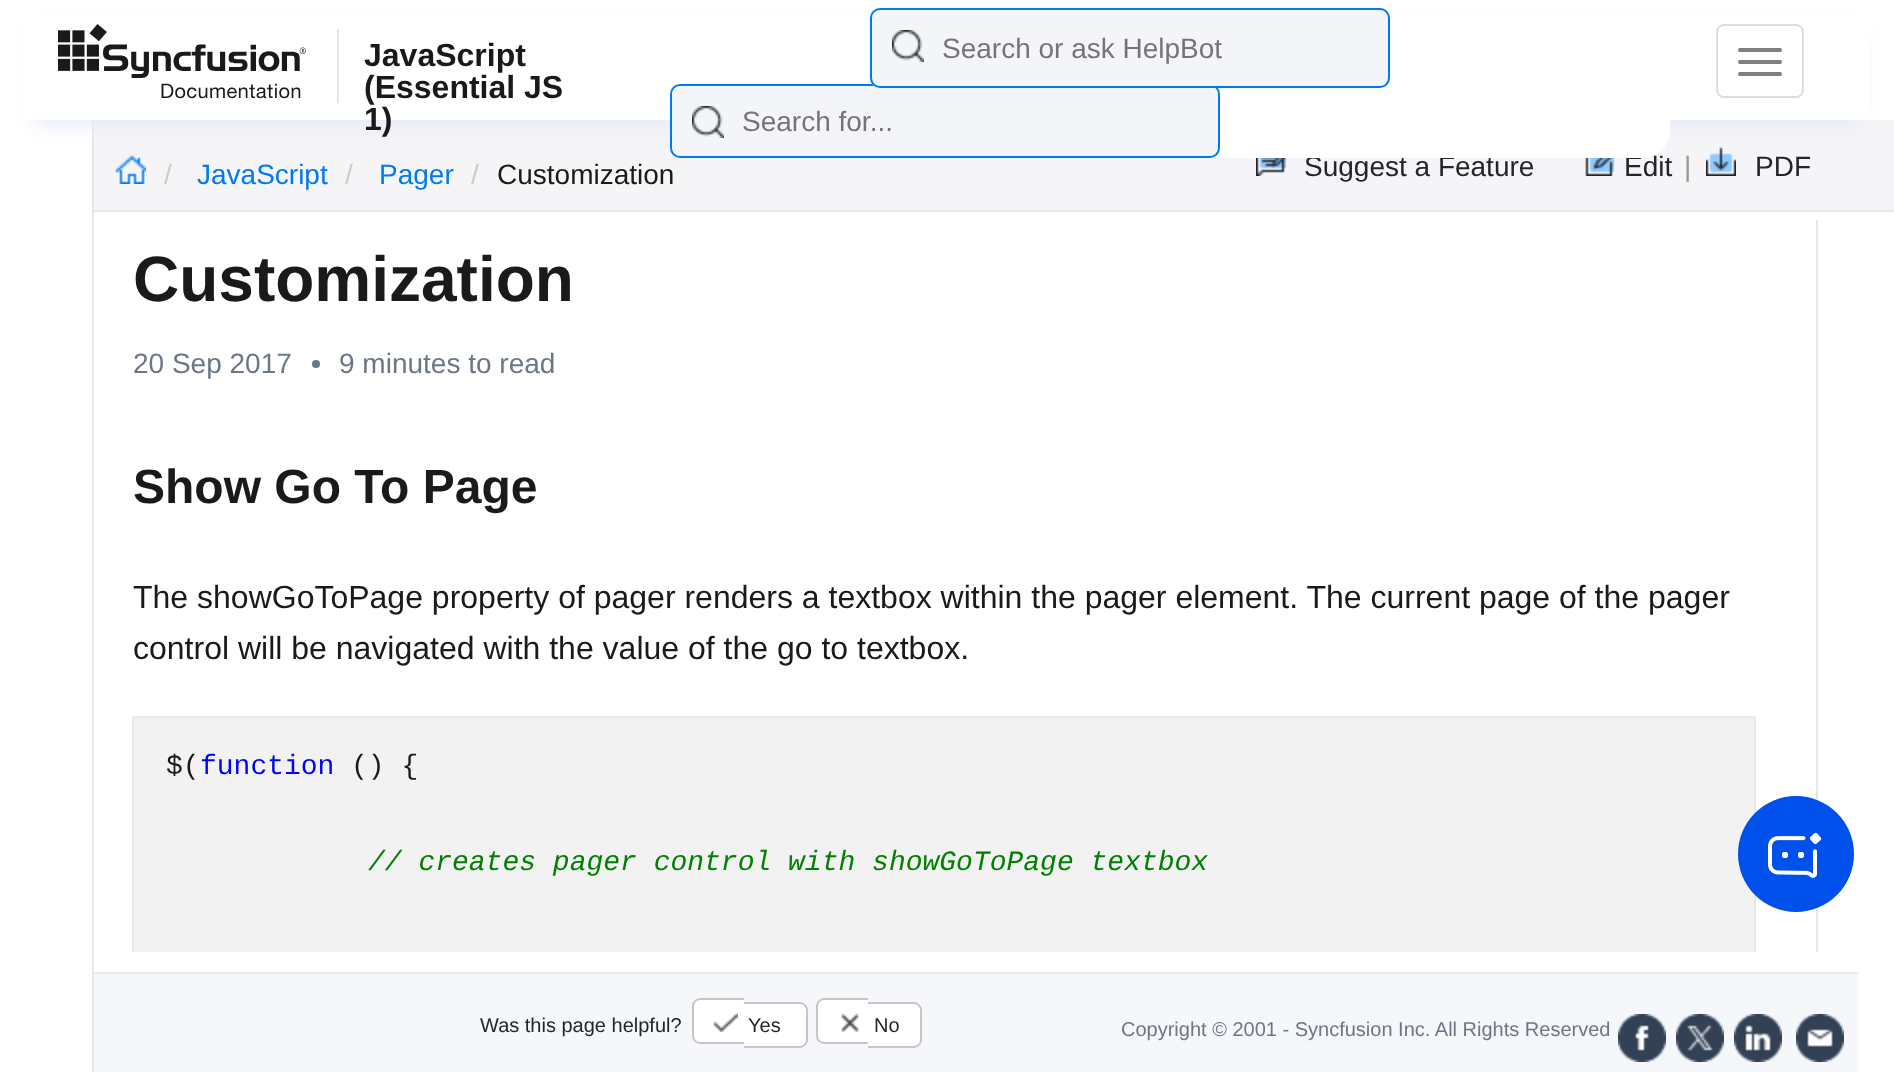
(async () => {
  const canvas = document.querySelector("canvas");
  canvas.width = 1894;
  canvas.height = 1072;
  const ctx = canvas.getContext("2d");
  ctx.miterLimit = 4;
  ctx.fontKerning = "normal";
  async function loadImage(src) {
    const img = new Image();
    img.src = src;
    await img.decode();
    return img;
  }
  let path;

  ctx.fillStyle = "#ffffff";
  ctx.fillRect(0, 0, 1894, 1072);
  ctx.fillStyle = "#f5f5f7";
  ctx.fillRect(94, 120, 1800, 90);
  ctx.drawImage(await loadImage("img/3.png"), 115, 155, 31, 29);
  ctx.drawImage(await loadImage("img/6.png"), 1706, 147, 30, 29);
  ctx.fillStyle = "#e7e7e7";
  ctx.fillRect(92, 120, 2, 952);
  ctx.fillStyle = "#e2eaf5";
  ctx.filter = "blur(11px)";
  ctx.beginPath();
  ctx.rect(36, 28, 1822, 96);
  ctx.fill();
  ctx.filter = "none";
  ctx.fillStyle = "#ffffff";
  ctx.fillRect(24, 13, 1846, 107);
  ctx.drawImage(await loadImage("img/1.png"), 58, 24, 281, 79);
  ctx.beginPath();
  ctx.roundRect(1717, 25, 86, 72, 7);
  ctx.strokeStyle = "#dddddd";
  ctx.lineWidth = 2;
  ctx.stroke();
  ctx.fillStyle = "#808080";
  ctx.beginPath();
  ctx.roundRect(1738, 48, 44, 4, 2);
  ctx.fill();
  ctx.beginPath();
  ctx.roundRect(1738, 60, 44, 4, 2);
  ctx.fill();
  ctx.beginPath();
  ctx.roundRect(1738, 72, 44, 4, 2);
  ctx.fill();
  ctx.fillStyle = "#e7e7e7";
  ctx.fillRect(94, 210, 1800, 2);
  ctx.drawImage(await loadImage("img/4.png"), 1256, 158, 30, 18);
  ctx.drawImage(await loadImage("img/5.png"), 1585, 158, 29, 18);
  ctx.fillRect(1816, 220, 2, 732);
  ctx.fillStyle = "#6c7786";
  ctx.beginPath();
  ctx.arc(316, 364, 4, 0, Math.PI * 2);
  ctx.fill();
  ctx.fillStyle = "#f2f2f2";
  ctx.fillRect(134, 718, 1620, 234);
  ctx.save();
  ctx.beginPath();
  ctx.rect(132, 220, 1684, 732);
  ctx.clip();
  ctx.strokeStyle = "#e8e8e8";
  ctx.strokeRect(133, 717, 1622, 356);
  ctx.restore();
  ctx.fillStyle = "#0050eb";
  ctx.beginPath();
  ctx.arc(1796, 854, 58, 0, Math.PI * 2);
  ctx.fill();
  ctx.drawImage(await loadImage("img/7.png"), 1768, 832, 54, 46);
  ctx.fillStyle = "#f5f7fa";
  ctx.fillRect(94, 974, 1764, 98);
  ctx.fillStyle = "#eaeaea";
  ctx.fillRect(94, 972, 1764, 2);
  ctx.fillStyle = "#ffffff";
  ctx.beginPath();
  ctx.roundRect(692, 998, 52, 46, [8, 0, 0, 8]);
  ctx.fill();
  ctx.fillStyle = "#c5c5c5";
  path = new Path2D("M700 998H744V1044H700C696 1044 692 1040 692 1036V1006C692 1002 696 998 700 998ZM700 1000H744V1042H700C697 1042 694 1039 694 1036V1006C694 1003 697 1000 700 1000Z");
  ctx.fill(path, "evenodd");
  ctx.fillStyle = "#ffffff";
  ctx.beginPath();
  ctx.roundRect(744, 1002, 64, 46, [0, 8, 8, 0]);
  ctx.fill();
  ctx.fillStyle = "#c5c5c5";
  path = new Path2D("M744 1002H800C804 1002 808 1006 808 1010V1040C808 1044 804 1048 800 1048H744ZM744 1004H800C803 1004 806 1007 806 1010V1040C806 1043 803 1046 800 1046H744Z");
  ctx.fill(path, "evenodd");
  ctx.drawImage(await loadImage("img/8.png"), 714, 1013, 24, 19);
  ctx.fillStyle = "#ffffff";
  ctx.beginPath();
  ctx.roundRect(816, 998, 52, 46, [8, 0, 0, 8]);
  ctx.fill();
  ctx.fillStyle = "#c5c5c5";
  path = new Path2D("M824 998H868V1044H824C820 1044 816 1040 816 1036V1006C816 1002 820 998 824 998ZM824 1000H868V1042H824C821 1042 818 1039 818 1036V1006C818 1003 821 1000 824 1000Z");
  ctx.fill(path, "evenodd");
  ctx.fillStyle = "#ffffff";
  ctx.beginPath();
  ctx.roundRect(868, 1002, 54, 46, [0, 8, 8, 0]);
  ctx.fill();
  ctx.fillStyle = "#c5c5c5";
  path = new Path2D("M868 1002H914C918 1002 922 1006 922 1010V1040C922 1044 918 1048 914 1048H868ZM868 1004H914C917 1004 920 1007 920 1010V1040C920 1043 917 1046 914 1046H868Z");
  ctx.fill(path, "evenodd");
  ctx.drawImage(await loadImage("img/9.png"), 841, 1013, 18, 19);
  ctx.drawImage(await loadImage("img/10.png"), 1618, 1014, 48, 48);
  ctx.drawImage(await loadImage("img/11.png"), 1676, 1014, 48, 48);
  ctx.drawImage(await loadImage("img/12.png"), 1734, 1014, 48, 48);
  ctx.drawImage(await loadImage("img/13.png"), 1796, 1014, 48, 48);
  ctx.font = "bold 32px Liberation Sans";
  ctx.fillStyle = "#1a1a1a";
  for (const [text, x, y] of [
    ["JavaScript", 364, 66],
    ["(Essential JS", 364, 98],
    ["1)", 364, 130],
  ]) {
    ctx.fillText(text, x, y);
  }
  ctx.font = "28px Liberation Sans";
  ctx.fillStyle = "#cccccc";
  ctx.fillText("/", 164, 184);
  ctx.fillStyle = "#0079f3";
  ctx.fillText("JavaScript", 197, 184);
  ctx.fillStyle = "#cccccc";
  ctx.fillText("/", 345, 184);
  ctx.fillStyle = "#0079f3";
  ctx.fillText("Pager", 379, 184);
  ctx.fillStyle = "#cccccc";
  ctx.fillText("/", 471, 184);
  ctx.fillStyle = "#1a1a1a";
  ctx.fillText("Customization", 497, 184);
  ctx.fillStyle = "#22252a";
  ctx.fillText("Suggest a Feature", 1304, 176);
  ctx.fillText("Edit", 1624, 176);
  ctx.fillStyle = "#ffffff";
  ctx.beginPath();
  ctx.roundRect(670, 88, 1000, 70, 28);
  ctx.fill();
  ctx.fillStyle = "#f4f5f8";
  ctx.beginPath();
  ctx.roundRect(670, 84, 550, 74, 10);
  ctx.fill();
  ctx.drawImage(await loadImage("img/2.png"), 692, 106, 32, 32);
  ctx.beginPath();
  ctx.roundRect(671, 85, 548, 72, 9);
  ctx.strokeStyle = "#0079f3";
  ctx.stroke();
  ctx.beginPath();
  ctx.roundRect(870, 8, 520, 80, 10);
  ctx.fill();
  ctx.drawImage(await loadImage("img/2.png"), 892, 30, 32, 32);
  ctx.beginPath();
  ctx.roundRect(871, 9, 518, 78, 9);
  ctx.stroke();
  ctx.fillStyle = "#757575";
  ctx.fillText("Search or ask HelpBot", 942, 58);
  ctx.fillText("Search for...", 742, 131);
  ctx.fillStyle = "#979797";
  ctx.fillText("|", 1684, 176);
  ctx.fillStyle = "#22252a";
  ctx.fillText("PDF", 1755, 176);
  ctx.font = "bold 64px Liberation Sans";
  ctx.fillStyle = "#1a1a1a";
  ctx.fillText("Customization", 133, 301);
  ctx.font = "28px Liberation Sans";
  ctx.fillStyle = "#6c7786";
  ctx.fillText("20 Sep 2017", 133, 373);
  ctx.fillText("9 minutes to read", 339, 373);
  ctx.font = "bold 48px Liberation Sans";
  ctx.fillStyle = "#1a1a1a";
  ctx.fillText("Show Go To Page", 133, 503);
  ctx.font = "32px Liberation Sans";
  ctx.fillText("The showGoToPage property of pager renders a textbox within the pager element. The current page of the pager", 133, 608);
  ctx.fillText("control will be navigated with the value of the go to textbox.", 133, 659);
  ctx.font = "28px Liberation Mono";
  ctx.fillText("$(", 166, 774);
  ctx.fillStyle = "#0000ff";
  ctx.fillText("function", 200, 774);
  ctx.fillStyle = "#1a1a1a";
  ctx.fillText("() {", 351, 774);
  ctx.font = "italic 28px Liberation Mono";
  ctx.fillStyle = "#008000";
  ctx.fillText("// creates pager control with showGoToPage textbox", 368, 870);
  ctx.font = "20px Liberation Sans";
  ctx.fillStyle = "#22252a";
  for (const [text, x, y] of [
    ["Was this page helpful?", 480, 1032],
    ["Yes", 748, 1032],
    ["No", 874, 1032],
  ]) {
    ctx.fillText(text, x, y);
  }
  ctx.fillStyle = "#6c7786";
  ctx.fillText("Copyright © 2001 - Syncfusion Inc. All Rights Reserved", 1121, 1036);
})();
